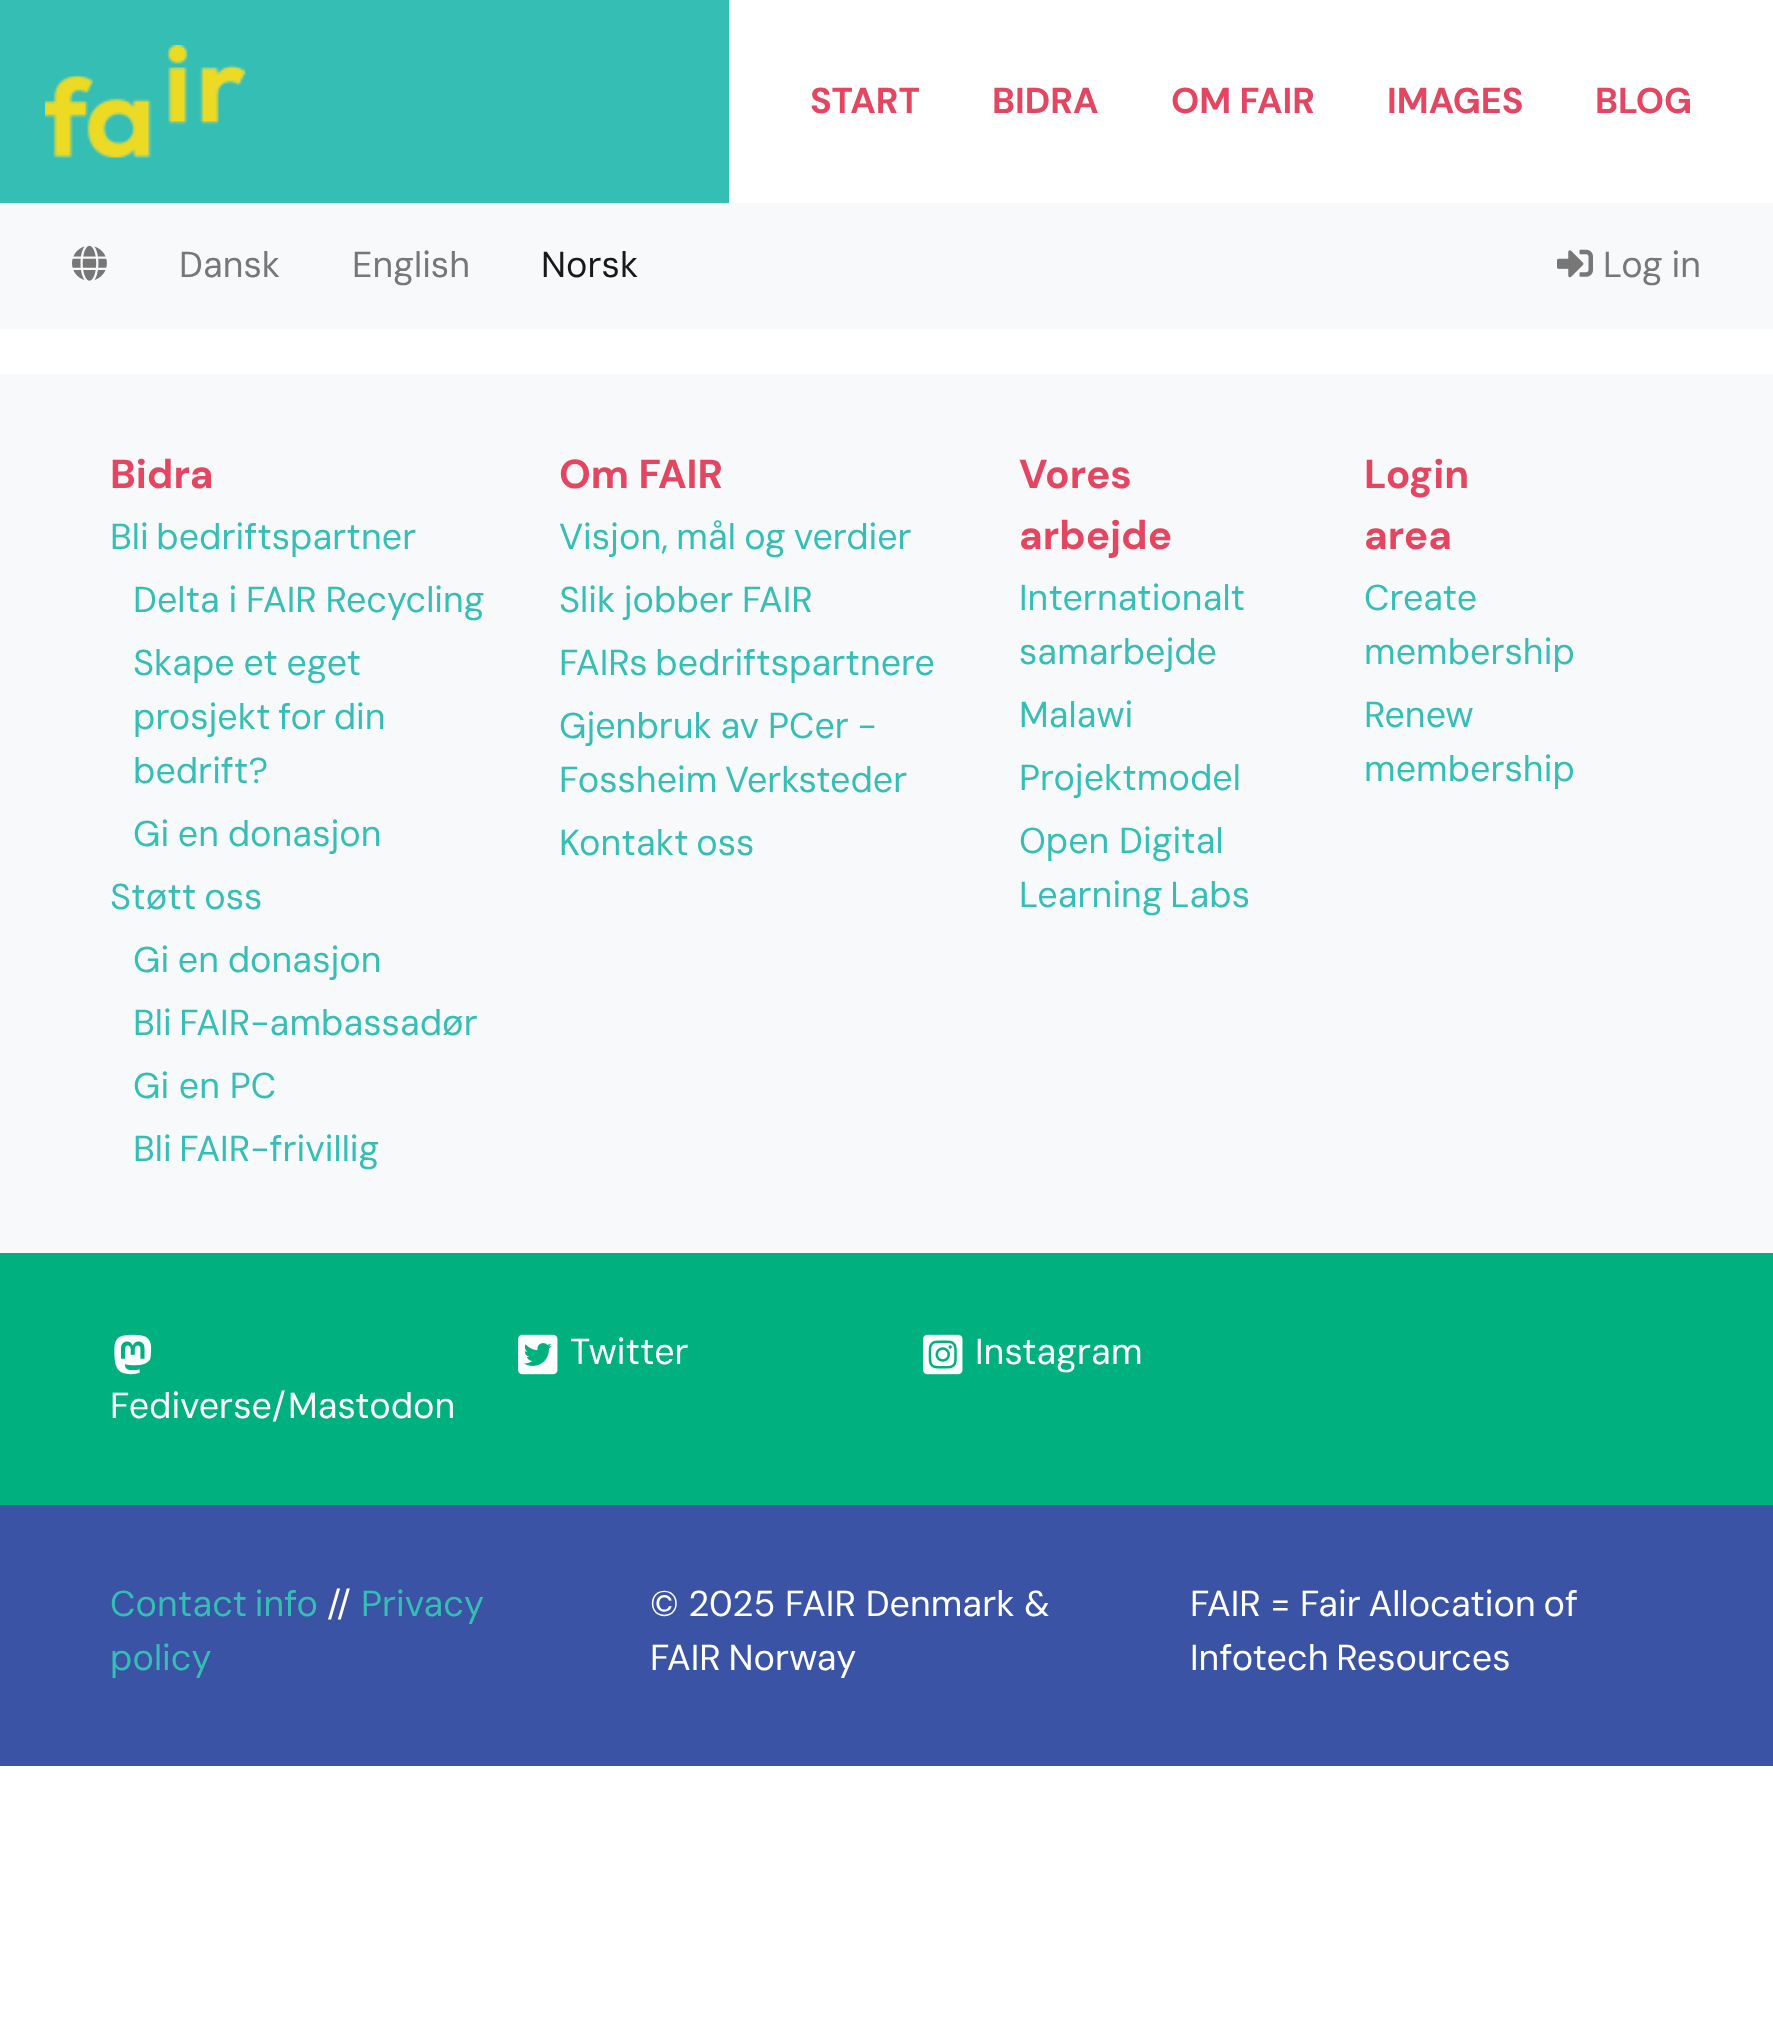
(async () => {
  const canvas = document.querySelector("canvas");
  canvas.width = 1773;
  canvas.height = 2038;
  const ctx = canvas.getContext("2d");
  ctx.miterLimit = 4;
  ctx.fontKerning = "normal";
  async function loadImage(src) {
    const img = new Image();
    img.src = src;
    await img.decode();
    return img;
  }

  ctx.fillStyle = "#ffffff";
  ctx.fillRect(0, 0, 1773, 2038);
  ctx.fillStyle = "#35beb4";
  ctx.fillRect(0, 0, 729, 203);
  ctx.drawImage(await loadImage("img/1.png"), 45, 45, 201, 113);
  ctx.fillStyle = "#f8f9fa";
  ctx.fillRect(0, 203, 1773, 126);
  ctx.drawImage(await loadImage("img/2.png"), 72, 245, 35, 36);
  ctx.drawImage(await loadImage("img/3.png"), 1557, 249, 36, 29);
  ctx.fillRect(0, 374, 1773, 879);
  ctx.fillStyle = "#00b07f";
  ctx.fillRect(0, 1253, 1773, 252);
  ctx.drawImage(await loadImage("img/4.png"), 518, 1334, 40, 41);
  ctx.drawImage(await loadImage("img/5.png"), 923, 1334, 40, 41);
  ctx.drawImage(await loadImage("img/6.png"), 114, 1334, 38, 41);
  ctx.fillStyle = "#3a53a4";
  ctx.fillRect(0, 1505, 1773, 261);
  ctx.font = "bold 36px DM Sans";
  ctx.fillStyle = "#e44662";
  for (const [text, x, y] of [
    ["START", 810, 113],
    ["BIDRA", 992, 113],
    ["OM FAIR", 1171, 113],
    ["IMAGES", 1387, 113],
    ["BLOG", 1595, 113],
  ]) {
    ctx.fillText(text, x, y);
  }
  ctx.font = "36px DM Sans";
  ctx.fillStyle = "#777777";
  ctx.fillText("Dansk", 179, 277);
  ctx.fillText("English", 352, 277);
  ctx.fillStyle = "#191919";
  ctx.fillText("Norsk", 541, 277);
  ctx.wordSpacing = "-1px";
  ctx.fillStyle = "#777777";
  ctx.fillText("Log in", 1603, 277);
  ctx.wordSpacing = "0px";
  ctx.font = "bold 40.5px 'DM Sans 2'";
  ctx.fillStyle = "#e44662";
  ctx.fillText("Bidra", 110, 488);
  ctx.wordSpacing = "-2px";
  ctx.font = "36px DM Sans";
  ctx.fillStyle = "#35beb4";
  ctx.fillText("Bli bedriftspartner", 110, 549);
  ctx.wordSpacing = "-1px";
  ctx.fillText("Delta i FAIR Recycling", 133, 612);
  ctx.fillText("Skape et eget", 133, 675);
  ctx.wordSpacing = "-2px";
  ctx.fillText("prosjekt for din", 133, 729);
  ctx.wordSpacing = "0px";
  ctx.fillText("bedrift?", 133, 783);
  ctx.wordSpacing = "-1px";
  ctx.fillText("Gi en donasjon", 133, 846);
  ctx.wordSpacing = "-2px";
  ctx.fillText("Støtt oss", 110, 909);
  ctx.wordSpacing = "-1px";
  ctx.fillText("Gi en donasjon", 133, 972);
  ctx.wordSpacing = "-2px";
  ctx.fillText("Bli FAIR-ambassadør", 133, 1035);
  ctx.wordSpacing = "0px";
  ctx.fillText("Gi en PC", 133, 1098);
  ctx.wordSpacing = "-2px";
  ctx.fillText("Bli FAIR-frivillig", 133, 1161);
  ctx.wordSpacing = "0px";
  ctx.font = "bold 40.5px 'DM Sans 2'";
  ctx.fillStyle = "#e44662";
  ctx.fillText("Om FAIR", 559, 488);
  ctx.wordSpacing = "-1.5px";
  ctx.font = "36px DM Sans";
  ctx.fillStyle = "#35beb4";
  ctx.fillText("Visjon, mål og verdier", 559, 549);
  ctx.wordSpacing = "-1px";
  ctx.fillText("Slik jobber FAIR", 559, 612);
  ctx.wordSpacing = "-2px";
  ctx.fillText("FAIRs bedriftspartnere", 559, 675);
  ctx.wordSpacing = "-1px";
  ctx.fillText("Gjenbruk av PCer -", 559, 738);
  ctx.wordSpacing = "-2px";
  ctx.fillText("Fossheim Verksteder", 559, 792);
  ctx.fillText("Kontakt oss", 559, 855);
  ctx.wordSpacing = "0px";
  ctx.font = "bold 40.5px 'DM Sans 2'";
  ctx.fillStyle = "#e44662";
  ctx.fillText("Vores", 1019, 488);
  ctx.fillText("arbejde", 1019, 549);
  ctx.font = "36px DM Sans";
  ctx.fillStyle = "#35beb4";
  for (const [text, x, y] of [
    ["Internationalt", 1019, 610],
    ["samarbejde", 1019, 664],
    ["Malawi", 1019, 727],
    ["Projektmodel", 1019, 790],
    ["Open Digital", 1019, 853],
  ]) {
    ctx.fillText(text, x, y);
  }
  ctx.wordSpacing = "-2px";
  ctx.fillText("Learning Labs", 1019, 907);
  ctx.wordSpacing = "0px";
  ctx.font = "bold 40.5px 'DM Sans 2'";
  ctx.fillStyle = "#e44662";
  ctx.fillText("Login", 1364, 488);
  ctx.fillText("area", 1364, 549);
  ctx.font = "36px DM Sans";
  ctx.fillStyle = "#35beb4";
  for (const [text, x, y] of [
    ["Create", 1364, 610],
    ["membership", 1364, 664],
    ["Renew", 1364, 727],
    ["membership", 1364, 781],
  ]) {
    ctx.fillText(text, x, y);
  }
  ctx.fillStyle = "#ffffff";
  for (const [text, x, y] of [
    ["Twitter", 570, 1364],
    ["Instagram", 975, 1364],
    ["Fediverse/Mastodon", 110, 1418],
  ]) {
    ctx.fillText(text, x, y);
  }
  ctx.wordSpacing = "-2px";
  ctx.fillStyle = "#35beb4";
  ctx.fillText("Contact info", 110, 1616);
  ctx.wordSpacing = "0px";
  ctx.fillStyle = "#ffffff";
  ctx.fillText("//", 327, 1616);
  ctx.fillStyle = "#35beb4";
  ctx.fillText("Privacy", 361, 1616);
  ctx.fillText("policy", 110, 1670);
  ctx.fillStyle = "#ffffff";
  ctx.fillText("© 2025 FAIR Denmark &", 650, 1616);
  ctx.wordSpacing = "-2px";
  ctx.fillText("FAIR Norway", 650, 1670);
  ctx.wordSpacing = "0px";
  ctx.fillText("FAIR =", 1190, 1616);
  ctx.wordSpacing = "-2px";
  ctx.fillText("Fair Allocation of", 1300, 1616);
  ctx.fillText("Infotech Resources", 1190, 1670);
})();
